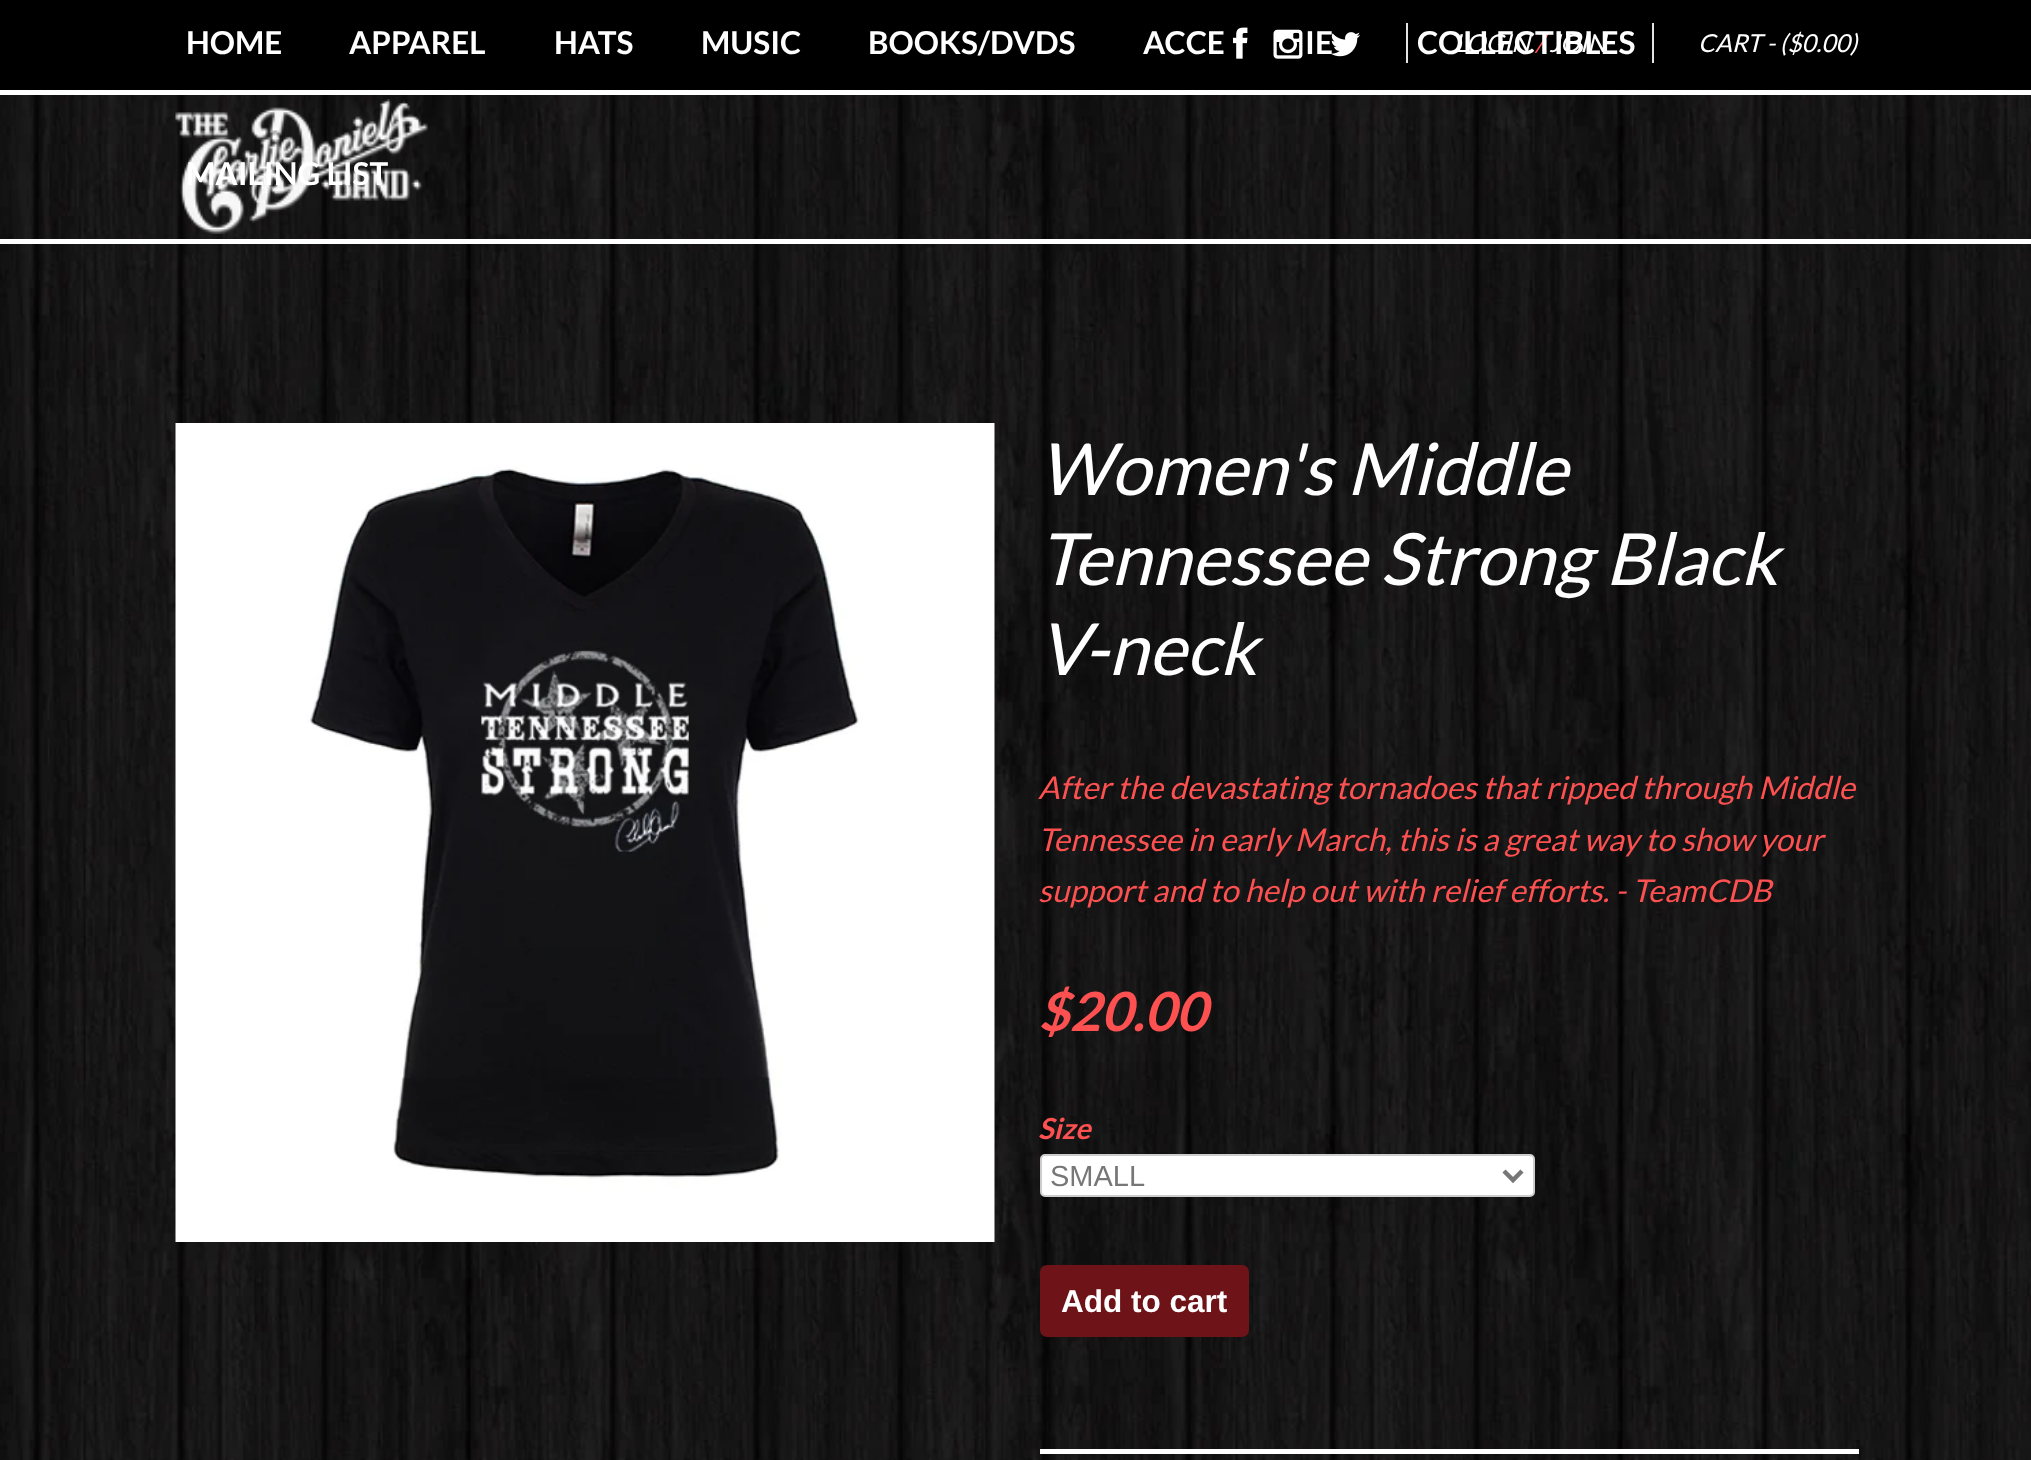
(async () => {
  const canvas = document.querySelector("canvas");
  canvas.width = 2031;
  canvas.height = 1460;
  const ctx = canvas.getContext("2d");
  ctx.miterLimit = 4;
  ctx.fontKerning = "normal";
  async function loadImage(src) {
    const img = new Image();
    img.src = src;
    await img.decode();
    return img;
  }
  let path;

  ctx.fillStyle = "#ffffff";
  ctx.fillRect(0, 0, 2031, 1460);
  ctx.drawImage(await loadImage("img/1.png"), 0, 95, 2031, 1365);
  ctx.fillRect(0, 239, 2031, 5);
  ctx.drawImage(await loadImage("img/2.png"), 175, 99, 253, 135);
  ctx.fillStyle = "#000000";
  ctx.fillRect(0, 0, 2031, 90);
  ctx.drawImage(await loadImage("img/3.png"), 1233, 27, 15, 32);
  ctx.drawImage(await loadImage("img/4.png"), 1273, 29, 30, 30);
  ctx.drawImage(await loadImage("img/5.png"), 1330, 32, 31, 25);
  ctx.fillStyle = "#e4e4e4";
  ctx.fillRect(1406, 23, 2, 40);
  ctx.fillRect(1652, 23, 2, 40);
  ctx.drawImage(await loadImage("img/6.png"), 175, 423, 820, 819);
  ctx.fillStyle = "#ffffff";
  ctx.fillRect(1040, 1449, 819, 5);
  ctx.beginPath();
  ctx.roundRect(1041, 1155, 493, 41, 4);
  ctx.fill();
  ctx.strokeStyle = "#cccccc";
  ctx.lineWidth = 2;
  ctx.stroke();
  path = new Path2D("M1504 1171L1513 1180L1522 1171");
  ctx.strokeStyle = "#777777";
  ctx.lineWidth = 4.5;
  ctx.stroke(path);
  ctx.fillStyle = "#6e1318";
  ctx.beginPath();
  ctx.roundRect(1040, 1265, 209, 72, 7);
  ctx.fill();
  ctx.font = "bold 31.5px Lato";
  ctx.fillStyle = "#ffffff";
  for (const [text, x, y] of [
    ["HOME", 186, 54],
    ["APPAREL", 349, 54],
    ["HATS", 554, 54],
    ["MUSIC", 701, 54],
    ["BOOKS/DVDS", 868, 54],
    ["ACCE", 1143, 54],
    ["IE", 1305, 54],
    ["MAILING LIST", 186, 185],
  ]) {
    ctx.fillText(text, x, y);
  }
  ctx.font = "italic 24.75px Lato";
  ctx.fillText("LOGIN", 1454, 52);
  ctx.fillStyle = "#fd5151";
  ctx.fillText("/", 1535, 52);
  ctx.fillStyle = "#ffffff";
  ctx.fillText("JOIN", 1549, 52);
  ctx.font = "bold 31.5px Lato";
  ctx.fillText("COLLECTIBLES", 1417, 54);
  ctx.font = "italic 24.75px Lato";
  ctx.fillText("CART - ($0.00)", 1698, 52);
  ctx.font = "italic 72px Lato";
  for (const [text, x, y] of [
    ["Women's Middle", 1038, 495],
    ["Tennessee Strong Black", 1038, 585],
    ["V-neck", 1038, 675],
  ]) {
    ctx.fillText(text, x, y);
  }
  ctx.font = "italic 31.5px Lato";
  ctx.fillStyle = "#fd5151";
  for (const [text, x, y] of [
    ["After the devastating tornadoes that ripped through Middle", 1038, 799],
    ["Tennessee in early March, this is a great way to show your", 1038, 851],
    ["support and to help out with relief efforts. - TeamCDB", 1038, 902],
  ]) {
    ctx.fillText(text, x, y);
  }
  ctx.font = "italic bold 54px Lato";
  ctx.fillText("$20.00", 1038, 1031);
  ctx.font = "italic bold 29px Lato";
  ctx.fillText("Size", 1038, 1139);
  ctx.font = "29px Liberation Sans";
  ctx.fillStyle = "#777777";
  ctx.fillText("SMALL", 1050, 1186);
  ctx.font = "bold 31.5px Liberation Sans";
  ctx.fillStyle = "#ffffff";
  ctx.fillText("Add to cart", 1061, 1312);
})();
